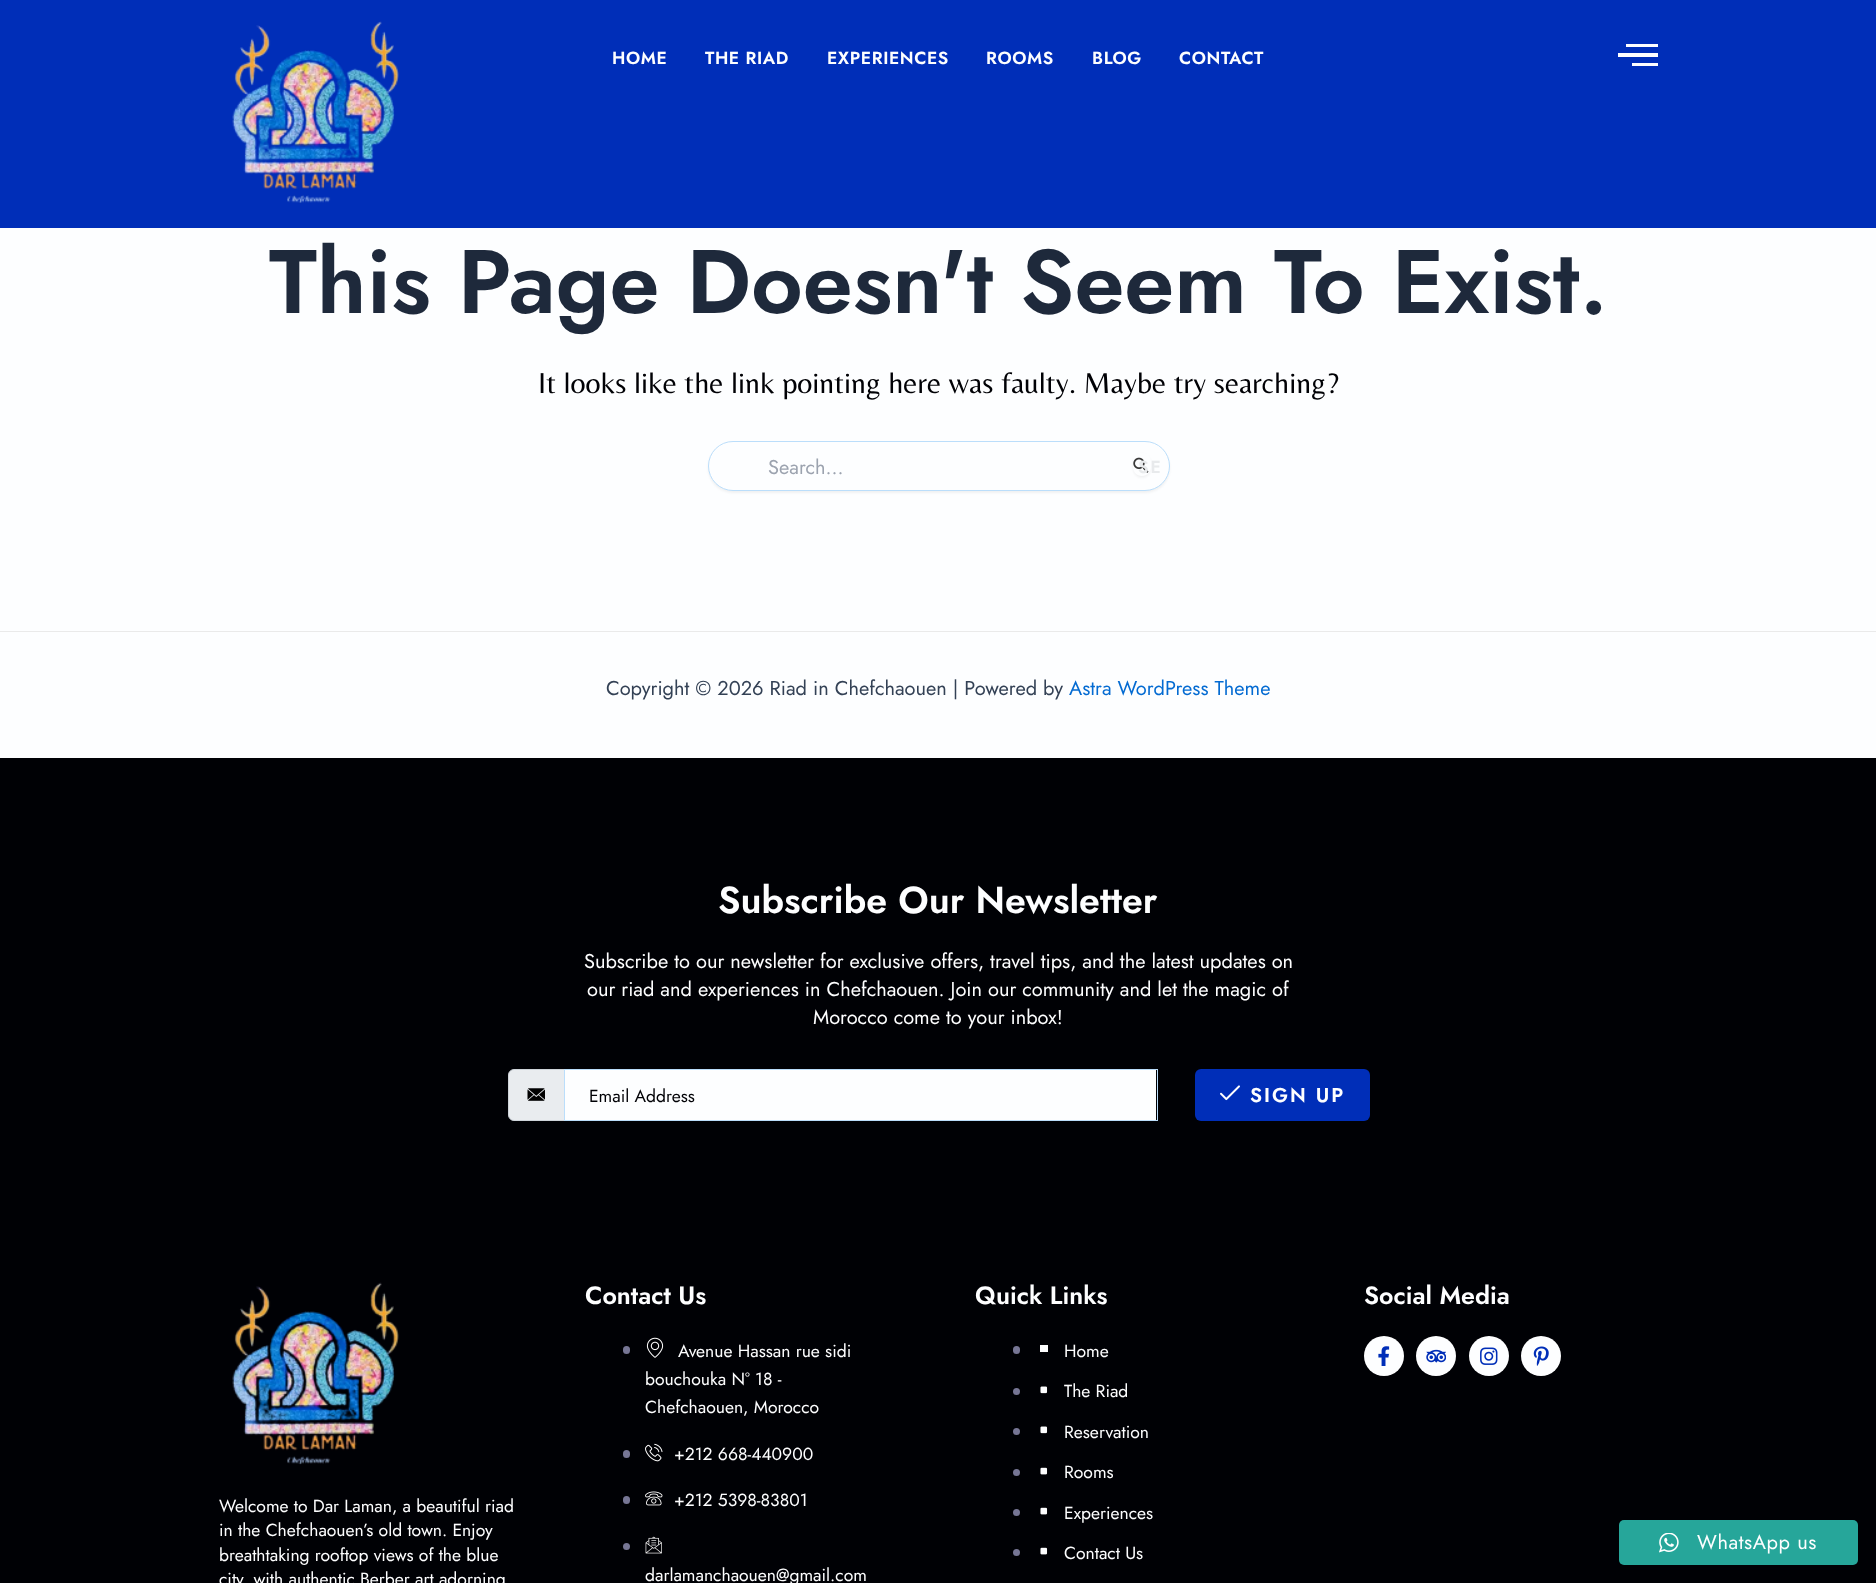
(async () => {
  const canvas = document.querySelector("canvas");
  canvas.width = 1876;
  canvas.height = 1583;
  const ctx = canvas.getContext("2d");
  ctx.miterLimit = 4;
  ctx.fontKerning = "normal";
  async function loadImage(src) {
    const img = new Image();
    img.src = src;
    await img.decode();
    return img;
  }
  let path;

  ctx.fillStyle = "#fdfeff";
  ctx.fillRect(0, 0, 1876, 1583);
  ctx.fillStyle = "#002eb8";
  ctx.fillRect(0, 0, 1876, 228);
  ctx.drawImage(await loadImage("img/1.png"), 232, 21, 167, 183);
  ctx.fillStyle = "#fdfeff";
  path = new Path2D("M1618 57H1658V53H1618ZM1632 66H1658V63H1632ZM1626 44V47H1658V44Z");
  ctx.fill(path);
  ctx.fillStyle = "rgba(0, 0, 0, 0.05)";
  ctx.filter = "blur(1px)";
  ctx.beginPath();
  ctx.roundRect(708, 443, 462, 50, 25);
  ctx.fill();
  ctx.filter = "none";
  ctx.fillStyle = "#fdfeff";
  ctx.beginPath();
  ctx.roundRect(708.5, 441.5, 461, 49, 24.5);
  ctx.fill();
  ctx.strokeStyle = "#bbdefb";
  ctx.stroke();
  ctx.save();
  path = new Path2D("M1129 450H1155V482H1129ZM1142 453C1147 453 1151 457 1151 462V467C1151 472 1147 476 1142 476C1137 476 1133 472 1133 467V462C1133 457 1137 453 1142 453Z");
  ctx.clip(path, "evenodd");
  ctx.fillStyle = "rgba(0, 0, 0, 0.05)";
  ctx.filter = "blur(1px)";
  ctx.beginPath();
  ctx.roundRect(1133, 454, 18, 24, 9);
  ctx.fill();
  ctx.filter = "none";
  ctx.restore();
  ctx.drawImage(await loadImage("img/2.png"), 1133, 457, 16, 16);
  ctx.fillStyle = "#eaeaea";
  ctx.fillRect(0, 631, 1876, 1);
  ctx.fillStyle = "#000105";
  ctx.fillRect(0, 758, 1876, 825);
  ctx.fillStyle = "#e9ecef";
  ctx.beginPath();
  ctx.roundRect(508.5, 1069.5, 56, 51, [5.5, 0, 0, 5.5]);
  ctx.fill();
  ctx.strokeStyle = "#ced4da";
  ctx.stroke();
  ctx.drawImage(await loadImage("img/3.png"), 527, 1088, 18, 13);
  ctx.fillStyle = "#fdfeff";
  ctx.fillRect(565, 1070, 591, 50);
  ctx.strokeStyle = "#bbdefb";
  ctx.strokeRect(564.5, 1069.5, 593, 51);
  ctx.fillStyle = "#002eb8";
  ctx.beginPath();
  ctx.roundRect(1195, 1069, 175, 52, 6);
  ctx.fill();
  ctx.drawImage(await loadImage("img/4.png"), 1220, 1085, 20, 16);
  ctx.drawImage(await loadImage("img/5.png"), 232, 1282, 167, 183);
  ctx.fillStyle = "#767695";
  ctx.beginPath();
  ctx.roundRect(623, 1346, 7, 8, 3.5);
  ctx.fill();
  ctx.drawImage(await loadImage("img/6.png"), 646, 1337, 18, 21);
  ctx.beginPath();
  ctx.roundRect(623, 1450, 7, 8, 3.5);
  ctx.fill();
  ctx.drawImage(await loadImage("img/7.png"), 645, 1443, 18, 19);
  ctx.beginPath();
  ctx.roundRect(623, 1496, 7, 8, 3.5);
  ctx.fill();
  ctx.drawImage(await loadImage("img/8.png"), 645, 1491, 18, 15);
  ctx.beginPath();
  ctx.arc(626.5, 1546.5, 3.5, 0, Math.PI * 2);
  ctx.fill();
  ctx.drawImage(await loadImage("img/9.png"), 645, 1536, 17, 18);
  ctx.beginPath();
  ctx.roundRect(1013, 1346, 7, 8, 3.5);
  ctx.fill();
  ctx.fillStyle = "#fdfeff";
  ctx.fillRect(1040, 1345, 8, 7);
  ctx.fillStyle = "#767695";
  ctx.beginPath();
  ctx.arc(1016.5, 1391.5, 3.5, 0, Math.PI * 2);
  ctx.fill();
  ctx.drawImage(await loadImage("img/10.png"), 1040, 1386, 8, 8);
  ctx.beginPath();
  ctx.arc(1016.5, 1431.5, 3.5, 0, Math.PI * 2);
  ctx.fill();
  ctx.drawImage(await loadImage("img/10.png"), 1040, 1426, 8, 8);
  ctx.beginPath();
  ctx.arc(1016.5, 1472.5, 3.5, 0, Math.PI * 2);
  ctx.fill();
  ctx.drawImage(await loadImage("img/11.png"), 1040, 1467, 8, 8);
  ctx.beginPath();
  ctx.arc(1016.5, 1512.5, 3.5, 0, Math.PI * 2);
  ctx.fill();
  ctx.drawImage(await loadImage("img/11.png"), 1040, 1507, 8, 8);
  ctx.beginPath();
  ctx.arc(1016.5, 1552.5, 3.5, 0, Math.PI * 2);
  ctx.fill();
  ctx.drawImage(await loadImage("img/11.png"), 1040, 1547, 8, 8);
  ctx.fillStyle = "#fdfeff";
  ctx.beginPath();
  ctx.arc(1384, 1356, 20, 0, Math.PI * 2);
  ctx.fill();
  ctx.drawImage(await loadImage("img/12.png"), 1378, 1346, 12, 20);
  ctx.beginPath();
  ctx.arc(1436, 1356, 20, 0, Math.PI * 2);
  ctx.fill();
  ctx.drawImage(await loadImage("img/13.png"), 1426, 1349, 20, 14);
  ctx.beginPath();
  ctx.arc(1489, 1356, 20, 0, Math.PI * 2);
  ctx.fill();
  ctx.drawImage(await loadImage("img/14.png"), 1480, 1347, 18, 18);
  ctx.beginPath();
  ctx.arc(1541, 1356, 20, 0, Math.PI * 2);
  ctx.fill();
  ctx.drawImage(await loadImage("img/15.png"), 1533, 1346, 16, 20);
  ctx.fillStyle = "#26a69a";
  ctx.beginPath();
  ctx.roundRect(1619, 1520, 239, 45, 5);
  ctx.fill();
  ctx.drawImage(await loadImage("img/16.png"), 1659, 1533, 20, 20);
  ctx.letterSpacing = "0.6px";
  ctx.font = "600 17.5px Jost";
  ctx.fillStyle = "#fdfeff";
  for (const [text, x, y] of [
    ["HOME", 612, 64],
    ["THE RIAD", 705, 64],
    ["EXPERIENCES", 827, 64],
    ["ROOMS", 986, 64],
    ["BLOG", 1092, 64],
    ["CONTACT", 1179, 64],
  ]) {
    ctx.fillText(text, x, y);
  }
  ctx.letterSpacing = "0px";
  ctx.font = "600 90px Jost";
  ctx.fillStyle = "#1e293b";
  ctx.fillText("This Page Doesn't Seem To Exist.", 269, 313);
  ctx.font = "30px Belleza";
  ctx.fillStyle = "#000105";
  ctx.fillText("It looks like the link pointing here was faulty. Maybe try searching?", 538, 393);
  ctx.font = "20px Jost";
  ctx.fillStyle = "#9ca3af";
  ctx.fillText("Search...", 768, 474);
  ctx.letterSpacing = "2px";
  ctx.font = "600 17.5px Jost";
  ctx.fillStyle = "#e8eaec";
  ctx.fillText("SE", 1138, 473);
  ctx.letterSpacing = "0px";
  ctx.font = "20px Jost";
  ctx.fillStyle = "#334155";
  ctx.fillText("Copyright © 2026 Riad in Chefchaouen | Powered by", 606, 695);
  ctx.fillStyle = "#046bd2";
  ctx.fillText("Astra WordPress Theme", 1069, 695);
  ctx.font = "600 37.5px Jost";
  ctx.fillStyle = "#fdfeff";
  ctx.fillText("Subscribe Our Newsletter", 718, 913);
  ctx.font = "20px Jost";
  for (const [text, x, y] of [
    ["Subscribe to our newsletter for exclusive offers, travel tips, and the latest updates on", 584, 968],
    ["our riad and experiences in Chefchaouen. Join our community and let the magic of", 587, 996],
    ["Morocco come to your inbox!", 813, 1024],
  ]) {
    ctx.fillText(text, x, y);
  }
  ctx.font = "17.5px Jost";
  ctx.fillStyle = "#000105";
  ctx.fillText("Email Address", 589, 1102);
  ctx.letterSpacing = "2px";
  ctx.font = "600 20px Jost";
  ctx.fillStyle = "#fdfeff";
  ctx.fillText("SIGN UP", 1250, 1102);
  ctx.letterSpacing = "0px";
  ctx.font = "17.5px Jost";
  for (const [text, x, y] of [
    ["Welcome to Dar Laman, a beautiful riad", 219, 1512],
    ["in the Chefchaouen’s old town. Enjoy", 219, 1536],
    ["breathtaking rooftop views of the blue", 219, 1561],
    ["city, with authentic Berber art adorning", 219, 1585],
  ]) {
    ctx.fillText(text, x, y);
  }
  ctx.font = "600 25px Jost";
  ctx.fillText("Contact Us", 585, 1304);
  ctx.font = "17.5px Jost";
  for (const [text, x, y] of [
    ["Avenue Hassan rue sidi", 678, 1357],
    ["bouchouka N° 18 -", 645, 1385],
    ["Chefchaouen, Morocco", 645, 1413],
    ["+212 668-440900", 674, 1460],
    ["+212 5398-83801", 674, 1506],
    ["darlamanchaouen@gmail.com", 645, 1581],
  ]) {
    ctx.fillText(text, x, y);
  }
  ctx.font = "600 25px Jost";
  ctx.fillText("Quick Links", 975, 1304);
  ctx.font = "17.5px Jost";
  for (const [text, x, y] of [
    ["Home", 1064, 1357],
    ["The Riad", 1064, 1397],
    ["Reservation", 1064, 1438],
    ["Rooms", 1064, 1478],
    ["Experiences", 1064, 1519],
    ["Contact Us", 1064, 1559],
  ]) {
    ctx.fillText(text, x, y);
  }
  ctx.font = "600 25px Jost";
  ctx.fillText("Social Media", 1364, 1304);
  ctx.letterSpacing = "0.6px";
  ctx.font = "20px Jost";
  ctx.fillText("WhatsApp us", 1697, 1549);
})();
